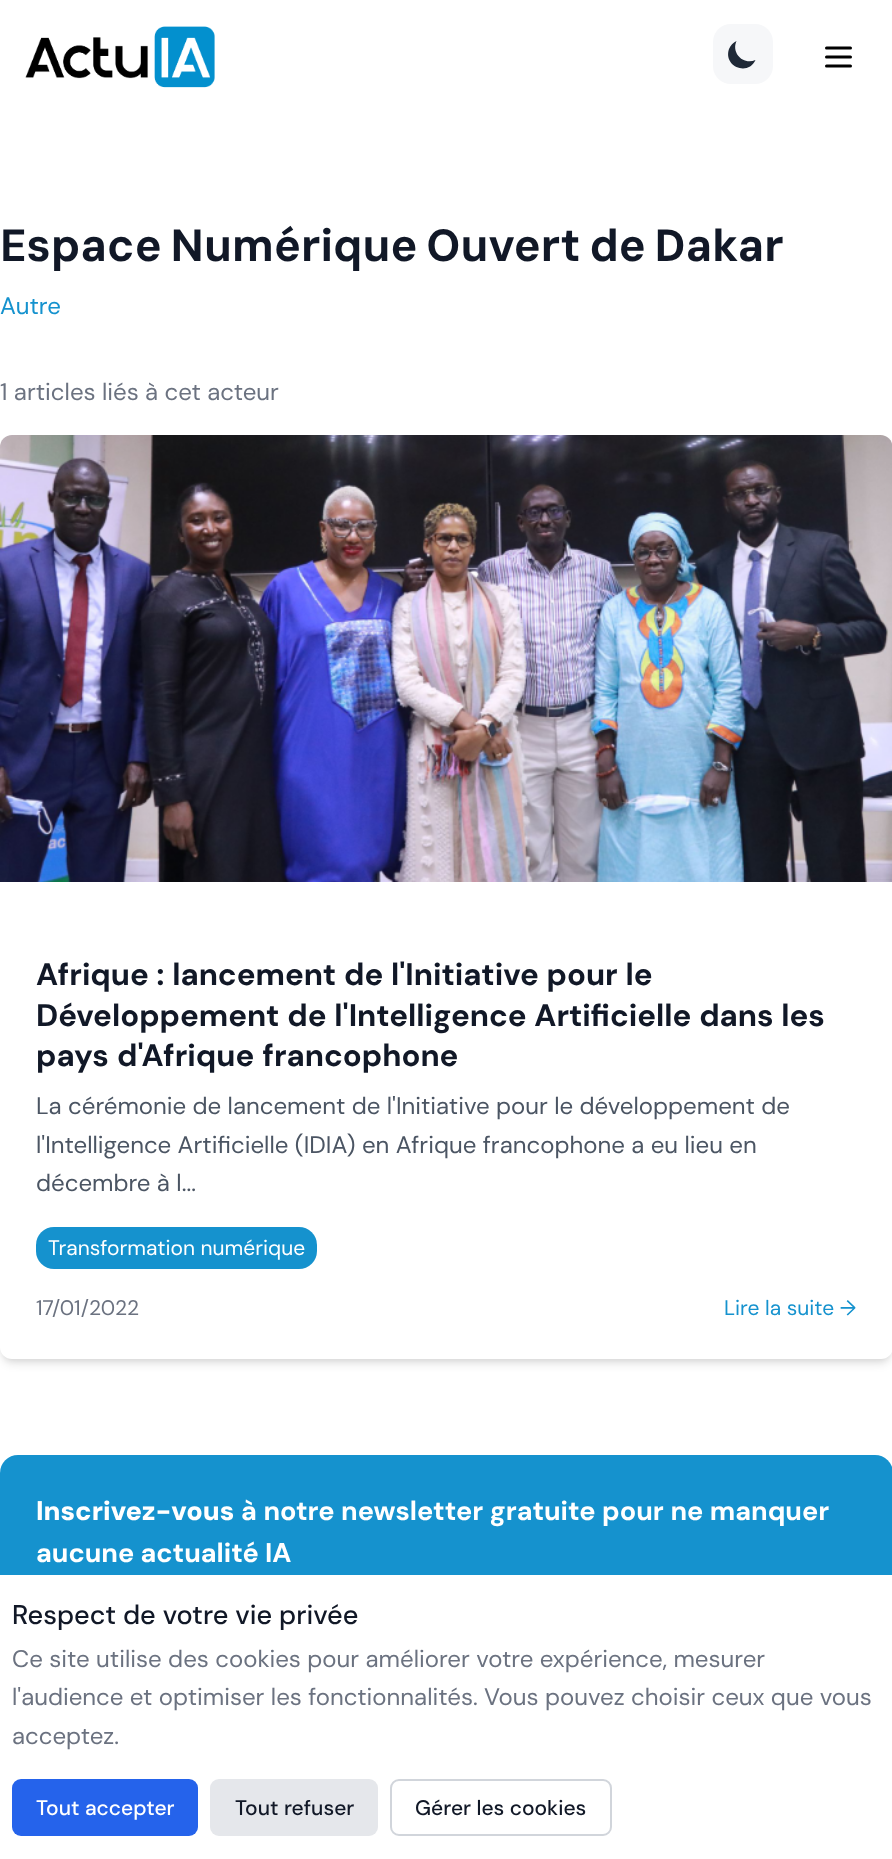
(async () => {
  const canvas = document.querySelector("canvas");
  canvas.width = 892;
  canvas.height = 1859;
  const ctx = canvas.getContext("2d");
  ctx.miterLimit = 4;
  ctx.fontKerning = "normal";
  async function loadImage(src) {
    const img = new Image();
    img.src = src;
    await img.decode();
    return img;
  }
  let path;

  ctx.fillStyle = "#ffffff";
  ctx.fillRect(0, 0, 892, 1859);
  ctx.drawImage(await loadImage("img/1.png"), 25, 26, 190, 62);
  ctx.fillStyle = "#f6f7f9";
  ctx.beginPath();
  ctx.roundRect(713, 24, 60, 60, 18);
  ctx.fill();
  ctx.fillStyle = "#1f2937";
  path = new Path2D("M755.5 60C743.5 65.5 731 53 736.5 41C733 42.5 730.5 45.5 729 49C723 66.5 748 76.5 755.5 60Z");
  ctx.fill(path);
  path = new Path2D("M826.5 48H850.5M826.5 57H850.5M826.5 66H850.5");
  ctx.strokeStyle = "#000000";
  ctx.lineWidth = 3;
  ctx.lineCap = "round";
  ctx.lineJoin = "round";
  ctx.stroke(path);
  ctx.fillStyle = "rgba(0, 0, 0, 0.1)";
  ctx.filter = "blur(3px)";
  ctx.beginPath();
  ctx.roundRect(3, 441, 887, 918, 9);
  ctx.fill();
  ctx.filter = "none";
  ctx.filter = "blur(4.5px)";
  ctx.beginPath();
  ctx.roundRect(2, 443, 889, 921, 11);
  ctx.fill();
  ctx.filter = "none";
  ctx.fillStyle = "#ffffff";
  ctx.beginPath();
  ctx.roundRect(0, 435, 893, 924, 12);
  ctx.fill();
  ctx.drawImage(await loadImage("img/2.png"), 0, 435, 892, 447);
  ctx.fillStyle = "#1592ce";
  ctx.beginPath();
  ctx.roundRect(36, 1227, 281, 42, 18);
  ctx.fill();
  ctx.beginPath();
  ctx.roundRect(0, 1455, 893, 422, 18);
  ctx.fill();
  ctx.fillStyle = "#ffffff";
  ctx.fillRect(0, 1575, 892, 284);
  ctx.fillStyle = "#2563eb";
  ctx.beginPath();
  ctx.roundRect(12, 1779, 186, 57, 9);
  ctx.fill();
  ctx.fillStyle = "#e5e7eb";
  ctx.beginPath();
  ctx.roundRect(210, 1779, 168, 57, 9);
  ctx.fill();
  ctx.beginPath();
  ctx.roundRect(391, 1780, 220, 55, 8);
  ctx.strokeStyle = "#d1d5db";
  ctx.lineWidth = 2;
  ctx.lineJoin = "miter";
  ctx.stroke();
  ctx.wordSpacing = "-2px";
  ctx.font = "bold 45px DM Sans";
  ctx.fillStyle = "#111827";
  ctx.fillText("Espace Numérique Ouvert de Dakar", 0, 261);
  ctx.wordSpacing = "0px";
  ctx.font = "24px DM Sans";
  ctx.fillStyle = "#1592ce";
  ctx.fillText("Autre", 0, 314);
  ctx.fillStyle = "#6b7280";
  ctx.fillText("1 articles liés à cet acteur", 0, 400);
  ctx.wordSpacing = "0.5px";
  ctx.font = "bold 31.2px 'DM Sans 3'";
  ctx.fillStyle = "#111827";
  ctx.fillText("Afrique : lancement de l'Initiative pour le", 36, 985);
  ctx.fillText("Développement de l'Intelligence Artificielle dans les", 36, 1026);
  ctx.wordSpacing = "1px";
  ctx.fillText("pays d'Afrique francophone", 36, 1066);
  ctx.wordSpacing = "0px";
  ctx.font = "24px DM Sans";
  ctx.fillStyle = "#4b5563";
  for (const [text, x, y] of [
    ["La cérémonie de lancement de l'Initiative pour le développement de", 36, 1114],
    ["l'Intelligence Artificielle (IDIA) en Afrique francophone a eu lieu en", 36, 1153],
    ["décembre à l...", 36, 1191],
  ]) {
    ctx.fillText(text, x, y);
  }
  ctx.font = "21px 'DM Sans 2'";
  ctx.fillStyle = "#ffffff";
  ctx.fillText("Transformation numérique", 48, 1255);
  ctx.fillStyle = "#6b7280";
  ctx.fillText("17/01/2022", 36, 1315);
  ctx.fillStyle = "#1592ce";
  ctx.fillText("Lire la suite →", 724, 1315);
  ctx.font = "900 27px DM Sans";
  ctx.fillStyle = "#ffffff";
  ctx.fillText("Inscrivez-vous", 36, 1520);
  ctx.wordSpacing = "0.25px";
  ctx.font = "bold 27px 'DM Sans 2'";
  ctx.fillText("à notre newsletter gratuite pour ne manquer", 241, 1520);
  ctx.wordSpacing = "0px";
  ctx.fillText("aucune actualité IA", 36, 1562);
  ctx.font = "500 27px DM Sans";
  ctx.fillStyle = "#111827";
  ctx.fillText("Respect de votre vie privée", 12, 1624);
  ctx.font = "24px DM Sans";
  ctx.fillStyle = "#6b7280";
  for (const [text, x, y] of [
    ["Ce site utilise des cookies pour améliorer votre expérience, mesurer", 12, 1667],
    ["l'audience et optimiser les fonctionnalités. Vous pouvez choisir ceux que vous", 12, 1705],
    ["acceptez.", 12, 1744],
  ]) {
    ctx.fillText(text, x, y);
  }
  ctx.font = "500 21px 'DM Sans 2'";
  ctx.fillStyle = "#ffffff";
  ctx.fillText("Tout accepter", 36, 1815);
  ctx.fillStyle = "#111827";
  ctx.fillText("Tout refuser", 235, 1815);
  ctx.fillText("Gérer les cookies", 415, 1815);
})();
